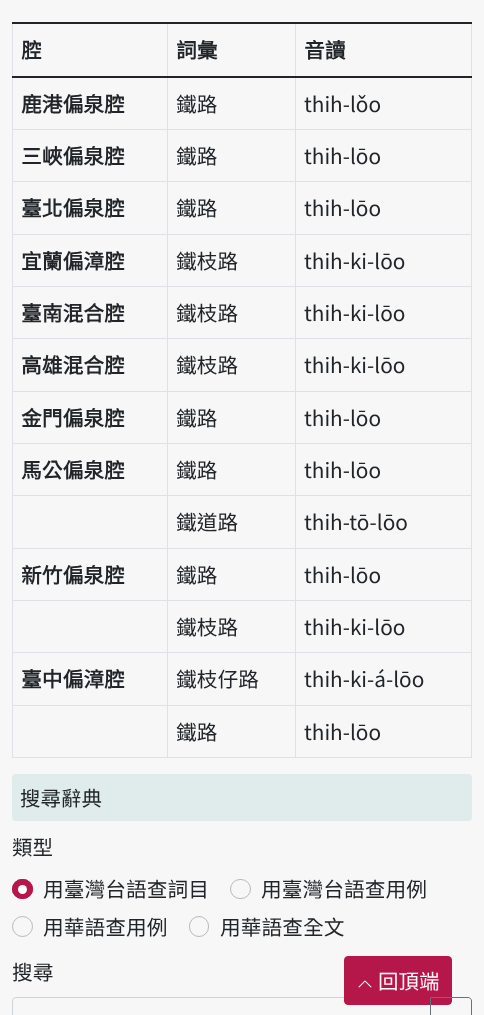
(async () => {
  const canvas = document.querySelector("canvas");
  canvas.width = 484;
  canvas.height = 1015;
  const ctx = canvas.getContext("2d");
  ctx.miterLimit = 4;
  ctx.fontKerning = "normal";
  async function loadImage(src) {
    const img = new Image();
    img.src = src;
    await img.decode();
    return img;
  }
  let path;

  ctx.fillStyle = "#f7f7f7";
  ctx.fillRect(0, 0, 484, 1015);
  for (const [x, y, w, h, color] of [
    [12, 129, 460, 1, "#dee2e6"],
    [12, 181, 460, 1, "#dee2e6"],
    [12, 234, 460, 1, "#dee2e6"],
    [12, 286, 460, 1, "#dee2e6"],
    [12, 338, 460, 1, "#dee2e6"],
    [12, 391, 460, 1, "#dee2e6"],
    [12, 443, 460, 1, "#dee2e6"],
    [12, 495, 460, 1, "#dee2e6"],
    [12, 548, 460, 1, "#dee2e6"],
    [12, 600, 460, 1, "#dee2e6"],
    [12, 652, 460, 1, "#dee2e6"],
    [12, 705, 460, 1, "#dee2e6"],
    [12, 757, 460, 1, "#dee2e6"],
    [12, 23, 1, 735, "#dee2e6"],
    [167, 23, 1, 735, "#dee2e6"],
    [471, 23, 1, 735, "#dee2e6"],
    [295, 23, 1, 735, "#dee2e6"],
    [12, 22, 460, 2, "#212529"],
    [12, 76, 460, 2, "#212529"],
  ]) {
    ctx.fillStyle = color;
    ctx.fillRect(x, y, w, h);
  }
  ctx.fillStyle = "#e0ebeb";
  ctx.beginPath();
  ctx.roundRect(12, 774, 460, 47, 4);
  ctx.fill();
  ctx.fillStyle = "#b6174b";
  ctx.beginPath();
  ctx.roundRect(12, 879, 21, 20, 10);
  ctx.fill();
  ctx.fillStyle = "#ffffff";
  ctx.beginPath();
  ctx.arc(22.5, 889.5, 4.5, 0, Math.PI * 2);
  ctx.fill();
  ctx.beginPath();
  ctx.roundRect(12.5, 879.5, 20, 19, 9.5);
  ctx.strokeStyle = "#b6174b";
  ctx.stroke();
  ctx.beginPath();
  ctx.roundRect(230.5, 879.5, 20, 19, 9.5);
  ctx.strokeStyle = "#b9b9b9";
  ctx.stroke();
  ctx.beginPath();
  ctx.arc(22.5, 926.5, 10, 0, Math.PI * 2);
  ctx.stroke();
  ctx.beginPath();
  ctx.roundRect(189.5, 916.5, 19, 20, 9.5);
  ctx.stroke();
  ctx.beginPath();
  ctx.roundRect(12.5, 997.5, 418, 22, 3.5);
  ctx.strokeStyle = "#ced4da";
  ctx.stroke();
  ctx.fillStyle = "#b6174b";
  ctx.beginPath();
  ctx.roundRect(344.5, 956.5, 107, 48, 3.5);
  ctx.fill();
  ctx.strokeStyle = "#b6174b";
  ctx.stroke();
  path = new Path2D("M430.5 997.5H468C470 997.5 471.5 999 471.5 1001V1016C471.5 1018 470 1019.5 468 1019.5H430.5Z");
  ctx.strokeStyle = "#687178";
  ctx.stroke(path);
  ctx.drawImage(await loadImage("img/1.png"), 358, 980, 14, 8);
  ctx.font = "bold 20.75px 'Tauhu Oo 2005'";
  ctx.fillStyle = "#212529";
  for (const [text, x, y] of [
    ["腔", 21, 58],
    ["詞彙", 176, 58],
    ["音讀", 304, 58],
    ["鹿港偏泉腔", 21, 112],
  ]) {
    ctx.fillText(text, x, y);
  }
  ctx.font = "20.75px 'Tauhu Oo 2005'";
  ctx.fillText("鐵路", 176, 112);
  ctx.fillText("thih-lǒo", 304, 112);
  ctx.font = "bold 20.75px 'Tauhu Oo 2005'";
  ctx.fillText("三峽偏泉腔", 21, 164);
  ctx.font = "20.75px 'Tauhu Oo 2005'";
  ctx.fillText("鐵路", 176, 164);
  ctx.fillText("thih-lōo", 304, 164);
  ctx.font = "bold 20.75px 'Tauhu Oo 2005'";
  ctx.fillText("臺北偏泉腔", 21, 216);
  ctx.font = "20.75px 'Tauhu Oo 2005'";
  ctx.fillText("鐵路", 176, 216);
  ctx.fillText("thih-lōo", 304, 216);
  ctx.font = "bold 20.75px 'Tauhu Oo 2005'";
  ctx.fillText("宜蘭偏漳腔", 21, 269);
  ctx.font = "20.75px 'Tauhu Oo 2005'";
  ctx.fillText("鐵枝路", 176, 269);
  ctx.fillText("thih-ki-lōo", 304, 269);
  ctx.font = "bold 20.75px 'Tauhu Oo 2005'";
  ctx.fillText("臺南混合腔", 21, 321);
  ctx.font = "20.75px 'Tauhu Oo 2005'";
  ctx.fillText("鐵枝路", 176, 321);
  ctx.fillText("thih-ki-lōo", 304, 321);
  ctx.font = "bold 20.75px 'Tauhu Oo 2005'";
  ctx.fillText("高雄混合腔", 21, 373);
  ctx.font = "20.75px 'Tauhu Oo 2005'";
  ctx.fillText("鐵枝路", 176, 373);
  ctx.fillText("thih-ki-lōo", 304, 373);
  ctx.font = "bold 20.75px 'Tauhu Oo 2005'";
  ctx.fillText("金門偏泉腔", 21, 426);
  ctx.font = "20.75px 'Tauhu Oo 2005'";
  ctx.fillText("鐵路", 176, 426);
  ctx.fillText("thih-lōo", 304, 426);
  ctx.font = "bold 20.75px 'Tauhu Oo 2005'";
  ctx.fillText("馬公偏泉腔", 21, 478);
  ctx.font = "20.75px 'Tauhu Oo 2005'";
  for (const [text, x, y] of [
    ["鐵路", 176, 478],
    ["thih-lōo", 304, 478],
    ["鐵道路", 176, 530],
    ["thih-tō-lōo", 304, 530],
  ]) {
    ctx.fillText(text, x, y);
  }
  ctx.font = "bold 20.75px 'Tauhu Oo 2005'";
  ctx.fillText("新竹偏泉腔", 21, 583);
  ctx.font = "20.75px 'Tauhu Oo 2005'";
  for (const [text, x, y] of [
    ["鐵路", 176, 583],
    ["thih-lōo", 304, 583],
    ["鐵枝路", 176, 635],
    ["thih-ki-lōo", 304, 635],
  ]) {
    ctx.fillText(text, x, y);
  }
  ctx.font = "bold 20.75px 'Tauhu Oo 2005'";
  ctx.fillText("臺中偏漳腔", 21, 687);
  ctx.font = "20.75px 'Tauhu Oo 2005'";
  for (const [text, x, y] of [
    ["鐵枝仔路", 176, 687],
    ["thih-ki-á-lōo", 304, 687],
    ["鐵路", 176, 740],
    ["thih-lōo", 304, 740],
  ]) {
    ctx.fillText(text, x, y);
  }
  ctx.font = "20.5px 'Tauhu Oo 2005'";
  ctx.fillText("搜尋辭典", 20, 806);
  ctx.fillText("類型", 12, 855);
  ctx.font = "20.75px 'Tauhu Oo 2005'";
  for (const [text, x, y] of [
    ["用臺灣台語查詞目", 43, 897],
    ["用臺灣台語查用例", 261, 897],
    ["用華語查用例", 43, 935],
    ["用華語查全文", 220, 935],
    ["搜尋", 12, 980],
  ]) {
    ctx.fillText(text, x, y);
  }
  ctx.font = "20.5px 'Tauhu Oo 2005'";
  ctx.fillStyle = "#ffffff";
  ctx.fillText("回頂端", 378, 989);
})();
